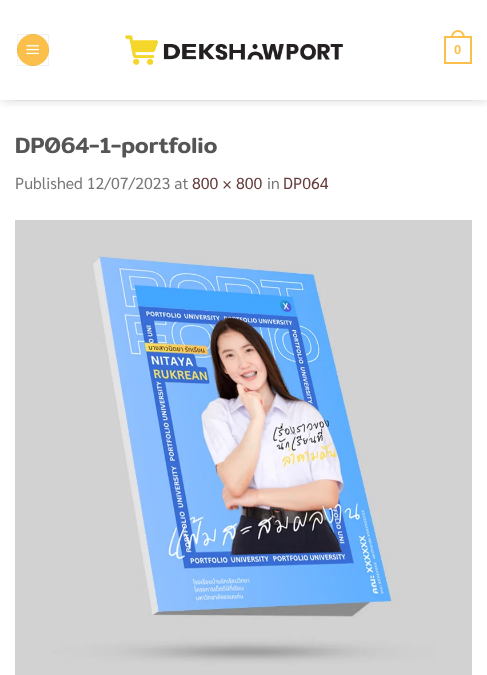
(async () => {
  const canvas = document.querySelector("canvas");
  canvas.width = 487;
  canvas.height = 675;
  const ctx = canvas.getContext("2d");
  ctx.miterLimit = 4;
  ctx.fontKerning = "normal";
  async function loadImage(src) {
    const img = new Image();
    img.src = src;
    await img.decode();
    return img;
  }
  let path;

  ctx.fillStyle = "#ffffff";
  ctx.fillRect(0, 0, 487, 675);
  ctx.save();
  ctx.beginPath();
  ctx.rect(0, 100, 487, 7);
  ctx.clip();
  ctx.fillStyle = "rgba(0, 0, 0, 0.15)";
  ctx.filter = "blur(5px)";
  ctx.beginPath();
  ctx.rect(1, 1, 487, 100);
  ctx.fill();
  ctx.filter = "none";
  ctx.restore();
  ctx.fillStyle = "#fbc04b";
  ctx.beginPath();
  ctx.arc(33, 50, 16, 0, Math.PI * 2);
  ctx.fill();
  ctx.strokeStyle = "rgba(0, 0, 0, 0.05)";
  ctx.strokeRect(17.5, 34.5, 31, 31);
  ctx.drawImage(await loadImage("img/1.png"), 26, 45, 13, 10);
  ctx.drawImage(await loadImage("img/2.png"), 125, 35, 218, 30);
  ctx.strokeStyle = "#fbc04b";
  ctx.lineWidth = 2;
  ctx.strokeRect(445, 37, 26, 26);
  path = new Path2D("M458 30C462.5 30 465 34 465 38H451C451 34 453.5 30 458 30ZM458 32C461.5 32 463 35 463 38H453C453 35 454.5 32 458 32Z");
  ctx.fill(path, "evenodd");
  ctx.fillStyle = "#dfdfdf";
  ctx.fillRect(15, 100, 457, 1);
  ctx.drawImage(await loadImage("img/3.png"), 15, 220, 457, 455);
  ctx.font = "bold 13px Liberation Sans";
  ctx.fillStyle = "#fbc04b";
  ctx.fillText("0", 454, 54);
  ctx.font = "500 22.5px Mitr";
  ctx.fillStyle = "#555555";
  ctx.fillText("DP064-1-portfolio", 15, 153);
  ctx.font = "16px Sarabun";
  ctx.fillStyle = "#777777";
  ctx.fillText("Published 12/07/2023 at", 15, 189);
  ctx.fillStyle = "#663d3d";
  ctx.fillText("800 × 800", 192, 189);
  ctx.fillStyle = "#777777";
  ctx.fillText("in", 267, 189);
  ctx.fillStyle = "#663d3d";
  ctx.fillText("DP064", 283, 189);
})();
